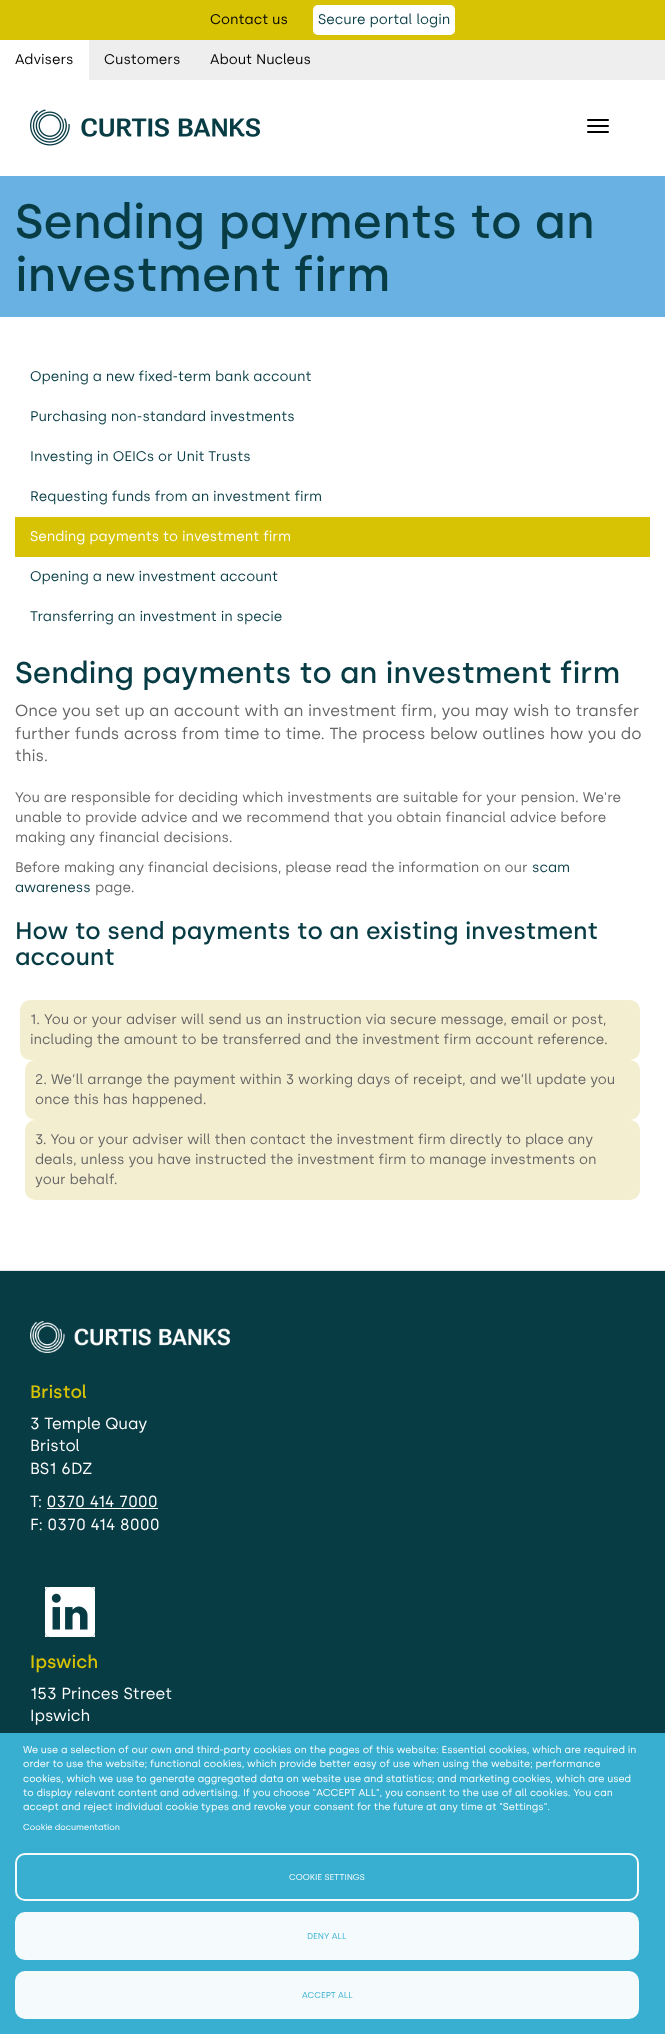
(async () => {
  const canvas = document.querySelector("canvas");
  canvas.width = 665;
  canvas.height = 2034;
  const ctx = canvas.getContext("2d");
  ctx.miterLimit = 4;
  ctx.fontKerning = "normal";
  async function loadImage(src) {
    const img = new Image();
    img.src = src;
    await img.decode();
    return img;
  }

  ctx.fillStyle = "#ffffff";
  ctx.fillRect(0, 0, 665, 2034);
  ctx.fillStyle = "#eeeeee";
  ctx.fillRect(89, 40, 576, 40);
  ctx.fillStyle = "#d8c204";
  ctx.fillRect(0, 0, 665, 40);
  ctx.fillStyle = "#ffffff";
  ctx.beginPath();
  ctx.roundRect(313, 5, 142, 30, 5);
  ctx.fill();
  ctx.drawImage(await loadImage("img/1.png"), 30, 109, 230, 37);
  ctx.fillStyle = "#000000";
  ctx.beginPath();
  ctx.roundRect(587, 119, 22, 2, 1);
  ctx.fill();
  ctx.beginPath();
  ctx.roundRect(587, 125, 22, 2, 1);
  ctx.fill();
  ctx.beginPath();
  ctx.roundRect(587, 131, 22, 2, 1);
  ctx.fill();
  ctx.fillStyle = "#69b1e3";
  ctx.fillRect(0, 176, 665, 141);
  ctx.fillStyle = "#d8c204";
  ctx.fillRect(15, 517, 635, 40);
  ctx.fillStyle = "#f4eed0";
  ctx.beginPath();
  ctx.roundRect(20, 1000, 620, 60, 10);
  ctx.fill();
  ctx.beginPath();
  ctx.roundRect(25, 1060, 615, 60, 10);
  ctx.fill();
  ctx.beginPath();
  ctx.roundRect(25, 1120, 615, 80, 10);
  ctx.fill();
  ctx.fillStyle = "#e5e5e5";
  ctx.fillRect(0, 1270, 665, 1);
  ctx.fillStyle = "#083c45";
  ctx.fillRect(0, 1271, 665, 462);
  ctx.drawImage(await loadImage("img/2.png"), 30, 1321, 200, 32);
  ctx.fillStyle = "#ffffff";
  ctx.fillRect(47, 1508, 111, 1);
  ctx.drawImage(await loadImage("img/3.png"), 45, 1587, 50, 50);
  ctx.fillStyle = "#38afd0";
  ctx.fillRect(0, 1733, 665, 301);
  ctx.beginPath();
  ctx.roundRect(16, 1854, 622, 46, 9);
  ctx.strokeStyle = "#f5fbfd";
  ctx.lineWidth = 2;
  ctx.stroke();
  ctx.fillStyle = "#f5fbfd";
  ctx.beginPath();
  ctx.roundRect(16, 1913, 622, 46, 9);
  ctx.fill();
  ctx.stroke();
  ctx.beginPath();
  ctx.roundRect(16, 1972, 622, 46, 9);
  ctx.fill();
  ctx.stroke();
  ctx.font = "14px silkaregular";
  ctx.fillStyle = "#000000";
  ctx.fillText("Contact us", 210, 24);
  ctx.fillStyle = "#083c45";
  ctx.fillText("Secure portal login", 318, 24);
  ctx.fillStyle = "#000000";
  for (const [text, x, y] of [
    ["Advisers", 15, 64],
    ["Customers", 104, 64],
    ["About Nucleus", 210, 64],
  ]) {
    ctx.fillText(text, x, y);
  }
  ctx.font = "500 48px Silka";
  ctx.fillStyle = "#083c45";
  ctx.fillText("Sending payments to an", 15, 238);
  ctx.fillText("investment firm", 15, 291);
  ctx.font = "14px silkaregular";
  for (const [text, x, y] of [
    ["Opening a new fixed-term bank account", 30, 381],
    ["Purchasing non-standard investments", 30, 421],
    ["Investing in OEICs or Unit Trusts", 30, 461],
    ["Requesting funds from an investment firm", 30, 501],
  ]) {
    ctx.fillText(text, x, y);
  }
  ctx.fillStyle = "#ffffff";
  ctx.fillText("Sending payments to investment firm", 30, 541);
  ctx.fillStyle = "#083c45";
  ctx.fillText("Opening a new investment account", 30, 581);
  ctx.fillText("Transferring an investment in specie", 30, 621);
  ctx.font = "500 30px Silka";
  ctx.fillText("Sending payments to an investment firm", 15, 683);
  ctx.font = "16px silkaregular";
  ctx.fillStyle = "#666666";
  for (const [text, x, y] of [
    ["Once you set up an account with an investment firm, you may wish to transfer", 15, 716],
    ["further funds across from time to time. The process below outlines how you do", 15, 739],
    ["this.", 15, 761],
  ]) {
    ctx.fillText(text, x, y);
  }
  ctx.font = "14px silkaregular";
  for (const [text, x, y] of [
    ["You are responsible for deciding which investments are suitable for your pension. We're", 15, 802],
    ["unable to provide advice and we recommend that you obtain financial advice before", 15, 822],
    ["making any financial decisions.", 15, 842],
    ["Before making any financial decisions, please read the information on our", 15, 872],
  ]) {
    ctx.fillText(text, x, y);
  }
  ctx.fillStyle = "#083c45";
  ctx.fillText("scam", 532, 872);
  ctx.fillText("awareness", 15, 892);
  ctx.fillStyle = "#666666";
  ctx.fillText("page.", 95, 892);
  ctx.font = "500 24px Silka";
  ctx.fillStyle = "#083c45";
  ctx.fillText("How to send payments to an existing investment", 15, 939);
  ctx.fillText("account", 15, 965);
  ctx.font = "14px silkaregular";
  ctx.fillStyle = "#666666";
  for (const [text, x, y] of [
    ["1. You or your adviser will send us an instruction via secure message, email or post,", 30, 1024],
    ["including the amount to be transferred and the investment firm account reference.", 30, 1044],
    ["2. We’ll arrange the payment within 3 working days of receipt, and we’ll update you", 35, 1084],
    ["once this has happened.", 35, 1104],
    ["3. You or your adviser will then contact the investment firm directly to place any", 35, 1144],
    ["deals, unless you have instructed the investment firm to manage investments on", 35, 1164],
    ["your behalf.", 35, 1184],
  ]) {
    ctx.fillText(text, x, y);
  }
  ctx.font = "500 18px Silka";
  ctx.fillStyle = "#d8c204";
  ctx.fillText("Bristol", 30, 1398);
  ctx.font = "16px silkaregular";
  ctx.fillStyle = "#ffffff";
  for (const [text, x, y] of [
    ["3 Temple Quay", 30, 1429],
    ["Bristol", 30, 1451],
    ["BS1 6DZ", 30, 1474],
    ["T: 0370 414 7000", 30, 1507],
    ["F: 0370 414 8000", 30, 1530],
  ]) {
    ctx.fillText(text, x, y);
  }
  ctx.font = "500 18px Silka";
  ctx.fillStyle = "#d8c204";
  ctx.fillText("Ipswich", 30, 1668);
  ctx.font = "16px silkaregular";
  ctx.fillStyle = "#ffffff";
  ctx.fillText("153 Princes Street", 30, 1699);
  ctx.fillText("Ipswich", 30, 1721);
  ctx.font = "10px silkaregular";
  for (const [text, x, y] of [
    ["We use a selection of our own and third-party cookies on the pages of this website: Essential cookies, which are required in", 23, 1753],
    ["order to use the website; functional cookies, which provide better easy of use when using the website; performance", 23, 1767],
    ["cookies, which we use to generate aggregated data on website use and statistics; and marketing cookies, which are used", 23, 1782],
    ["to display relevant content and advertising. If you choose \"ACCEPT ALL\", you consent to the use of all cookies. You can", 23, 1796],
    ["accept and reject individual cookie types and revoke your consent for the future at any time at \"Settings\".", 23, 1810],
  ]) {
    ctx.fillText(text, x, y);
  }
  ctx.font = "8.5px silkaregular";
  ctx.fillText("Cookie documentation", 23, 1830);
  ctx.fillStyle = "#f5fbfd";
  ctx.fillText("COOKIE SETTINGS", 289, 1880);
  ctx.fillStyle = "#38afd0";
  ctx.fillText("DENY ALL", 307, 1939);
  ctx.fillText("ACCEPT ALL", 302, 1998);
})();
